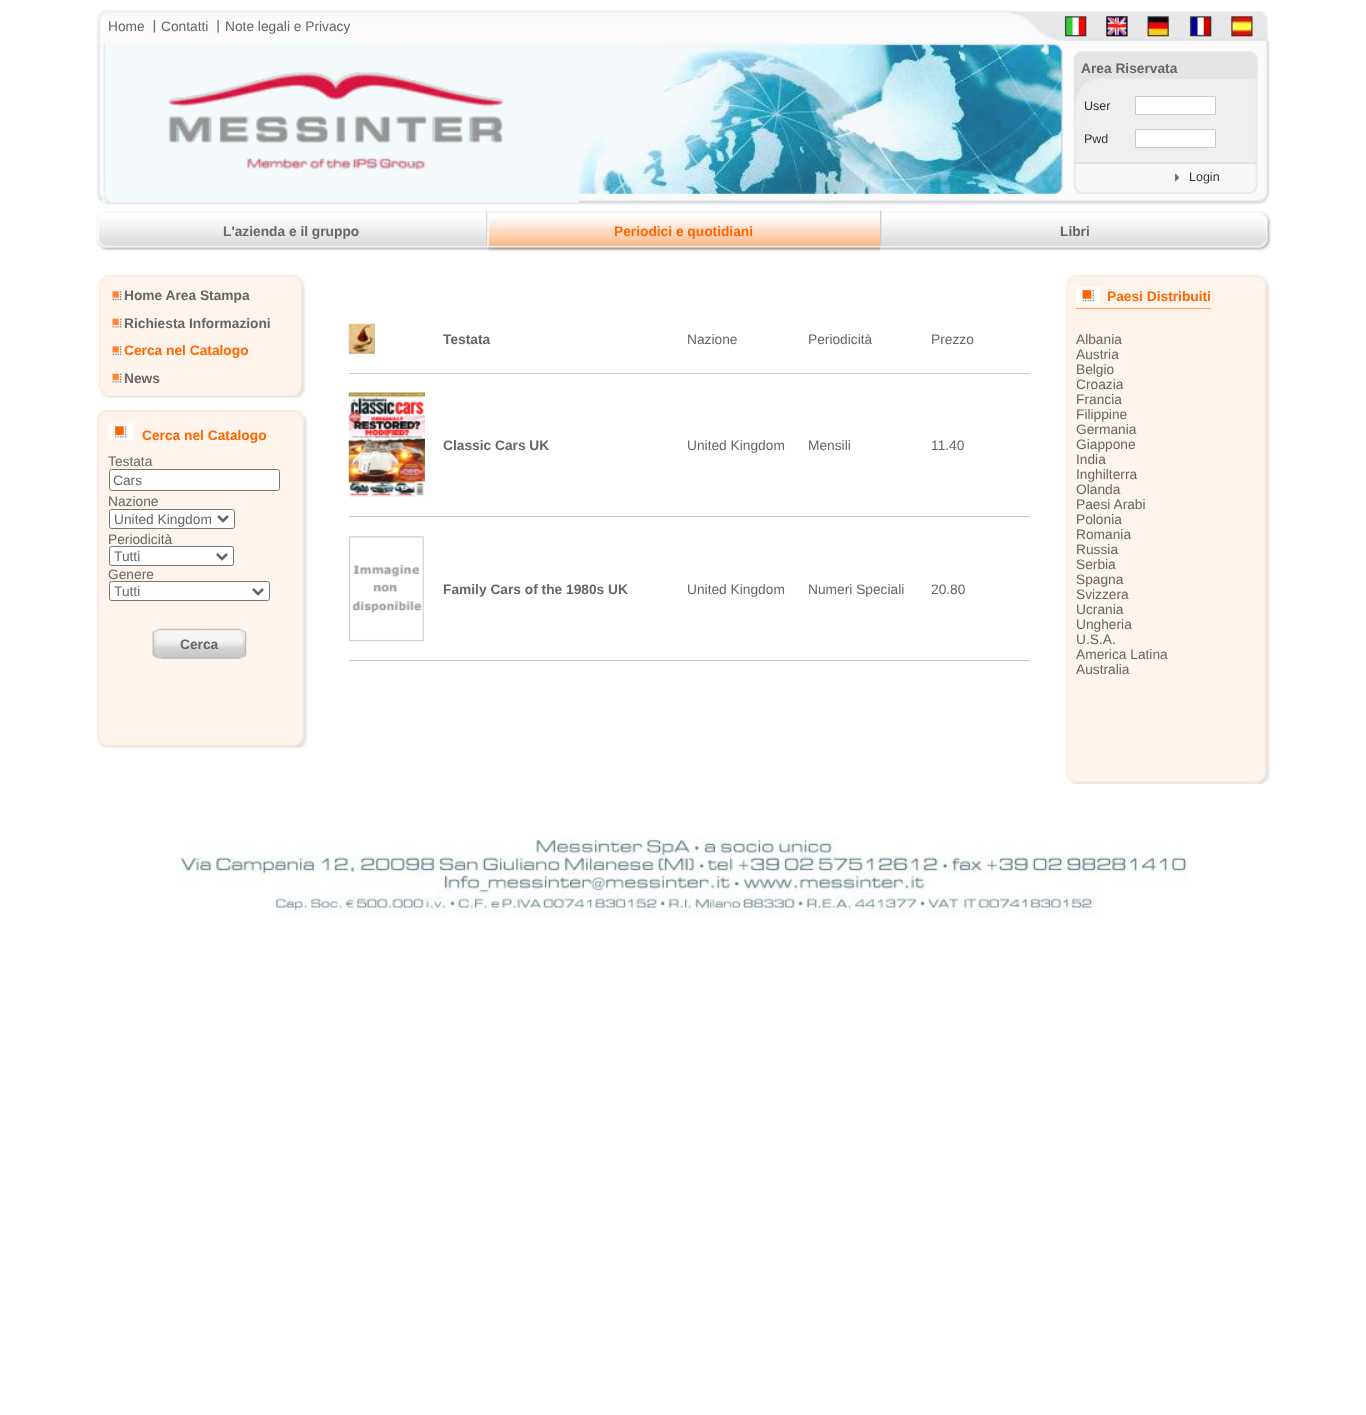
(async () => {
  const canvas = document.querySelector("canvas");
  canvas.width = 1366;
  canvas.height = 1415;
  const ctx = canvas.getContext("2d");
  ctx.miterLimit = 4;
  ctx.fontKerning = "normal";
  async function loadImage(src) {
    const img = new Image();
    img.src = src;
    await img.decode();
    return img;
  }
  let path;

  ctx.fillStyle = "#ffffff";
  ctx.fillRect(0, 0, 1366, 1415);
  ctx.drawImage(await loadImage("img/1.png"), 96, 10, 967, 32);
  ctx.drawImage(await loadImage("img/2.png"), 145, 19, 11, 17);
  ctx.drawImage(await loadImage("img/3.png"), 209, 19, 10, 15);
  ctx.drawImage(await loadImage("img/4.png"), 1062, 11, 207, 31);
  ctx.drawImage(await loadImage("img/5.png"), 1062, 14, 27, 25);
  ctx.drawImage(await loadImage("img/6.png"), 1104, 14, 26, 25);
  ctx.drawImage(await loadImage("img/7.png"), 1145, 13, 27, 26);
  ctx.drawImage(await loadImage("img/8.png"), 1188, 14, 26, 25);
  ctx.drawImage(await loadImage("img/9.png"), 1228, 14, 27, 25);
  ctx.drawImage(await loadImage("img/11.png"), 1062, 41, 208, 164);
  ctx.drawImage(await loadImage("img/10.png"), 96, 41, 967, 164);
  ctx.beginPath();
  ctx.rect(1135.5, 96.5, 80, 18);
  ctx.fill();
  ctx.strokeStyle = "#cccccc";
  ctx.stroke();
  ctx.beginPath();
  ctx.rect(1135.5, 129.5, 80, 18);
  ctx.fill();
  ctx.stroke();
  ctx.drawImage(await loadImage("img/12.png"), 1174, 173, 5, 9);
  ctx.drawImage(await loadImage("img/13.png"), 96, 211, 392, 40);
  ctx.drawImage(await loadImage("img/14.png"), 487, 211, 393, 41);
  ctx.drawImage(await loadImage("img/15.png"), 880, 211, 391, 41);
  ctx.drawImage(await loadImage("img/19.png"), 98, 287, 11, 98);
  ctx.drawImage(await loadImage("img/16.png"), 98, 275, 11, 13);
  ctx.drawImage(await loadImage("img/23.png"), 291, 287, 15, 98);
  ctx.drawImage(await loadImage("img/17.png"), 109, 275, 183, 13);
  ctx.drawImage(await loadImage("img/18.png"), 291, 275, 15, 13);
  ctx.fillStyle = "#fff4ec";
  ctx.fillRect(109, 288, 182, 97);
  ctx.drawImage(await loadImage("img/20.png"), 112, 291, 10, 10);
  ctx.drawImage(await loadImage("img/21.png"), 112, 318, 10, 10);
  ctx.drawImage(await loadImage("img/22.png"), 112, 346, 10, 10);
  ctx.drawImage(await loadImage("img/21.png"), 112, 373, 10, 10);
  ctx.drawImage(await loadImage("img/24.png"), 98, 385, 11, 13);
  ctx.drawImage(await loadImage("img/25.png"), 109, 385, 183, 13);
  ctx.drawImage(await loadImage("img/26.png"), 291, 385, 15, 13);
  ctx.drawImage(await loadImage("img/27.png"), 97, 410, 12, 13);
  ctx.drawImage(await loadImage("img/28.png"), 109, 410, 183, 13);
  ctx.drawImage(await loadImage("img/29.png"), 291, 410, 17, 13);
  ctx.drawImage(await loadImage("img/30.png"), 97, 422, 12, 313);
  ctx.fillRect(109, 423, 182, 312);
  ctx.drawImage(await loadImage("img/31.png"), 109, 423, 24, 17);
  ctx.fillStyle = "#ffffff";
  ctx.beginPath();
  ctx.roundRect(109.5, 469.5, 170, 21, 2);
  ctx.fill();
  ctx.strokeStyle = "#767676";
  ctx.stroke();
  ctx.beginPath();
  ctx.roundRect(109.5, 509.5, 125, 19, 2);
  ctx.fill();
  ctx.stroke();
  path = new Path2D("M218 516L223 521L228 516");
  ctx.strokeStyle = "#666666";
  ctx.lineWidth = 2.5;
  ctx.stroke(path);
  ctx.beginPath();
  ctx.roundRect(109.5, 546.5, 124, 19, 2);
  ctx.fill();
  ctx.strokeStyle = "#767676";
  ctx.lineWidth = 1;
  ctx.stroke();
  path = new Path2D("M217 554L222 559L227 554");
  ctx.strokeStyle = "#666666";
  ctx.lineWidth = 2.5;
  ctx.stroke(path);
  ctx.beginPath();
  ctx.roundRect(109.5, 581.5, 160, 19, 2);
  ctx.fill();
  ctx.strokeStyle = "#767676";
  ctx.lineWidth = 1;
  ctx.stroke();
  path = new Path2D("M253 589L258 594L263 589");
  ctx.strokeStyle = "#666666";
  ctx.lineWidth = 2.5;
  ctx.stroke(path);
  ctx.drawImage(await loadImage("img/32.png"), 152, 628, 95, 31);
  ctx.drawImage(await loadImage("img/33.png"), 291, 422, 17, 313);
  ctx.drawImage(await loadImage("img/34.png"), 97, 735, 12, 13);
  ctx.drawImage(await loadImage("img/35.png"), 109, 735, 183, 13);
  ctx.drawImage(await loadImage("img/36.png"), 291, 735, 17, 13);
  ctx.drawImage(await loadImage("img/37.png"), 348, 323, 27, 31);
  ctx.fillStyle = "#cccccc";
  ctx.fillRect(349, 373, 681, 1);
  ctx.drawImage(await loadImage("img/38.png"), 348, 392, 77, 105);
  ctx.fillRect(349, 516, 681, 1);
  ctx.drawImage(await loadImage("img/39.png"), 348, 536, 76, 106);
  ctx.fillRect(349, 660, 681, 1);
  ctx.drawImage(await loadImage("img/40.png"), 1066, 275, 11, 13);
  ctx.drawImage(await loadImage("img/41.png"), 1076, 275, 178, 13);
  ctx.drawImage(await loadImage("img/42.png"), 1254, 275, 16, 13);
  ctx.fillStyle = "#fff4ec";
  ctx.fillRect(1076, 288, 178, 483);
  ctx.fillStyle = "#ff9966";
  ctx.fillRect(1076, 308, 135, 1);
  ctx.drawImage(await loadImage("img/43.png"), 1066, 287, 11, 485);
  ctx.drawImage(await loadImage("img/44.png"), 1076, 287, 24, 17);
  ctx.drawImage(await loadImage("img/45.png"), 1254, 287, 17, 485);
  ctx.drawImage(await loadImage("img/46.png"), 1066, 771, 11, 13);
  ctx.drawImage(await loadImage("img/47.png"), 1076, 771, 178, 13);
  ctx.drawImage(await loadImage("img/48.png"), 1254, 771, 17, 13);
  ctx.drawImage(await loadImage("img/49.png"), 176, 836, 1011, 80);
  ctx.font = "13.75px Liberation Sans";
  ctx.fillStyle = "#666666";
  for (const [text, x, y] of [
    ["Home", 108, 31],
    ["Contatti", 161, 31],
    ["Note legali e Privacy", 225, 31],
  ]) {
    ctx.fillText(text, x, y);
  }
  ctx.font = "bold 13.75px Liberation Sans";
  ctx.fillText("Area Riservata", 1081, 73);
  ctx.font = "12.5px Liberation Sans";
  ctx.fillStyle = "#333333";
  for (const [text, x, y] of [
    ["User", 1084, 110],
    ["Pwd", 1084, 143],
    ["Login", 1189, 181],
  ]) {
    ctx.fillText(text, x, y);
  }
  ctx.font = "bold 13.75px Liberation Sans";
  ctx.fillStyle = "#666666";
  ctx.fillText("L'azienda e il gruppo", 223, 236);
  ctx.fillStyle = "#ff6600";
  ctx.fillText("Periodici e quotidiani", 614, 236);
  ctx.fillStyle = "#666666";
  for (const [text, x, y] of [
    ["Libri", 1060, 236],
    ["Home Area Stampa", 124, 300],
    ["Richiesta Informazioni", 124, 328],
  ]) {
    ctx.fillText(text, x, y);
  }
  ctx.fillStyle = "#ff6600";
  ctx.fillText("Cerca nel Catalogo", 124, 355);
  ctx.fillStyle = "#666666";
  ctx.fillText("News", 124, 383);
  ctx.fillStyle = "#ff6600";
  ctx.fillText("Cerca nel Catalogo", 142, 440);
  ctx.font = "13.75px Liberation Sans";
  ctx.fillStyle = "#666666";
  for (const [text, x, y] of [
    ["Testata", 108, 466],
    ["Cars", 113, 485],
    ["Nazione", 108, 506],
    ["United Kingdom", 114, 524],
    ["Periodicità", 108, 544],
    ["Tutti", 114, 561],
    ["Genere", 108, 579],
    ["Tutti", 114, 596],
  ]) {
    ctx.fillText(text, x, y);
  }
  ctx.font = "bold 13.75px Liberation Sans";
  ctx.fillText("Cerca", 180, 649);
  ctx.fillText("Testata", 443, 344);
  ctx.font = "13.75px Liberation Sans";
  for (const [text, x, y] of [
    ["Nazione", 687, 344],
    ["Periodicità", 808, 344],
    ["Prezzo", 931, 344],
  ]) {
    ctx.fillText(text, x, y);
  }
  ctx.font = "bold 13.75px Liberation Sans";
  ctx.fillText("Classic Cars UK", 443, 450);
  ctx.font = "13.75px Liberation Sans";
  for (const [text, x, y] of [
    ["United Kingdom", 687, 450],
    ["Mensili", 808, 450],
    ["11.40", 931, 450],
  ]) {
    ctx.fillText(text, x, y);
  }
  ctx.font = "bold 13.75px Liberation Sans";
  ctx.fillText("Family Cars of the 1980s UK", 443, 594);
  ctx.font = "13.75px Liberation Sans";
  for (const [text, x, y] of [
    ["United Kingdom", 687, 594],
    ["Numeri Speciali", 808, 594],
    ["20.80", 931, 594],
  ]) {
    ctx.fillText(text, x, y);
  }
  ctx.font = "bold 13.75px Liberation Sans";
  ctx.fillStyle = "#ff6600";
  ctx.fillText("Paesi Distribuiti", 1107, 301);
  ctx.font = "13.75px Liberation Sans";
  ctx.fillStyle = "#666666";
  for (const [text, x, y] of [
    ["Albania", 1076, 344],
    ["Austria", 1076, 359],
    ["Belgio", 1076, 374],
    ["Croazia", 1076, 389],
    ["Francia", 1076, 404],
    ["Filippine", 1076, 419],
    ["Germania", 1076, 434],
    ["Giappone", 1076, 449],
    ["India", 1076, 464],
    ["Inghilterra", 1076, 479],
    ["Olanda", 1076, 494],
    ["Paesi Arabi", 1076, 509],
    ["Polonia", 1076, 524],
    ["Romania", 1076, 539],
    ["Russia", 1076, 554],
    ["Serbia", 1076, 569],
    ["Spagna", 1076, 584],
    ["Svizzera", 1076, 599],
    ["Ucrania", 1076, 614],
    ["Ungheria", 1076, 629],
    ["U.S.A.", 1076, 644],
    ["America Latina", 1076, 659],
    ["Australia", 1076, 674],
  ]) {
    ctx.fillText(text, x, y);
  }
})();
